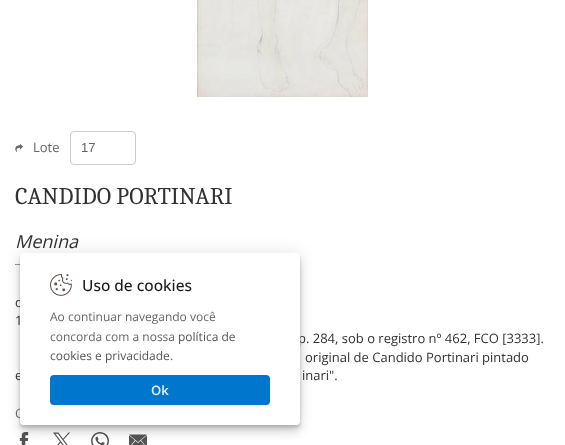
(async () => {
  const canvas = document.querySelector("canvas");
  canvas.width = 565;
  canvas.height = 445;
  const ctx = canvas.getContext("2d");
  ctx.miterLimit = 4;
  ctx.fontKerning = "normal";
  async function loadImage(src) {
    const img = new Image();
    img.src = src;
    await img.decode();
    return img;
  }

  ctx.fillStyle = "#ffffff";
  ctx.fillRect(0, 0, 565, 445);
  ctx.drawImage(await loadImage("img/1.png"), 197, 0, 171, 97);
  ctx.drawImage(await loadImage("img/2.png"), 15, 143, 8, 9);
  ctx.beginPath();
  ctx.roundRect(70.5, 131.5, 65, 33, 3.5);
  ctx.strokeStyle = "#cccccc";
  ctx.stroke();
  ctx.fillStyle = "#999999";
  ctx.fillRect(15, 264, 10, 1);
  ctx.drawImage(await loadImage("img/3.png"), 19, 432, 10, 13);
  ctx.drawImage(await loadImage("img/4.png"), 53, 432, 17, 13);
  ctx.drawImage(await loadImage("img/5.png"), 91, 432, 18, 13);
  ctx.drawImage(await loadImage("img/6.png"), 129, 434, 18, 11);
  ctx.fillStyle = "rgba(0, 0, 0, 0.1)";
  ctx.filter = "blur(8px)";
  ctx.beginPath();
  ctx.roundRect(20, 253, 280, 172, 4);
  ctx.fill();
  ctx.filter = "none";
  ctx.filter = "blur(4px)";
  ctx.beginPath();
  ctx.roundRect(20, 261, 280, 172, 4);
  ctx.fill();
  ctx.filter = "none";
  ctx.filter = "blur(2px)";
  ctx.beginPath();
  ctx.roundRect(20, 257, 280, 172, 4);
  ctx.fill();
  ctx.filter = "none";
  ctx.filter = "blur(1px)";
  ctx.beginPath();
  ctx.roundRect(20, 255, 280, 172, 4);
  ctx.fill();
  ctx.filter = "none";
  ctx.font = "13px Open Sans";
  ctx.fillStyle = "#666666";
  ctx.fillText("Lote", 33, 152);
  ctx.font = "13px Liberation Sans";
  ctx.fillText("17", 81, 152);
  ctx.font = "24px Caladea";
  ctx.fillStyle = "#323232";
  ctx.fillText("CANDIDO PORTINARI", 15, 204);
  ctx.font = "italic 18px Open Sans";
  ctx.fillText("Menina", 15, 248);
  ctx.font = "13px Open Sans";
  for (const [text, x, y] of [
    ["c", 15, 307],
    ["1", 15, 325],
    ["p. 284, sob o registro nº 462, FCO [3333].", 298, 343],
    ["original de Candido Portinari pintado", 305, 362],
    ["e", 15, 380],
    ["inari\".", 302, 380],
  ]) {
    ctx.fillText(text, x, y);
  }
  ctx.fillStyle = "#666666";
  ctx.fillText("C", 15, 418);
  ctx.fillStyle = "#ffffff";
  ctx.beginPath();
  ctx.roundRect(20, 253, 280, 172, 4);
  ctx.fill();
  ctx.drawImage(await loadImage("img/7.png"), 50, 274, 22, 22);
  ctx.font = "500 15.5px Open Sans";
  ctx.fillStyle = "#1a1a1a";
  ctx.fillText("Uso de cookies", 82, 291);
  ctx.font = "12px Open Sans";
  ctx.fillStyle = "#666666";
  ctx.fillText("Ao continuar navegando você", 50, 321);
  ctx.fillText("concorda com a nossa", 50, 341);
  ctx.fillStyle = "#555555";
  ctx.fillText("política de", 178, 341);
  ctx.fillText("cookies e privacidade", 50, 360);
  ctx.fillStyle = "#666666";
  ctx.fillText(".", 170, 360);
  ctx.fillStyle = "#0077cc";
  ctx.beginPath();
  ctx.roundRect(50, 375, 220, 30, 4);
  ctx.fill();
  ctx.font = "600 13px Open Sans";
  ctx.fillStyle = "#f1f1f1";
  ctx.fillText("Ok", 151, 395);
})();
